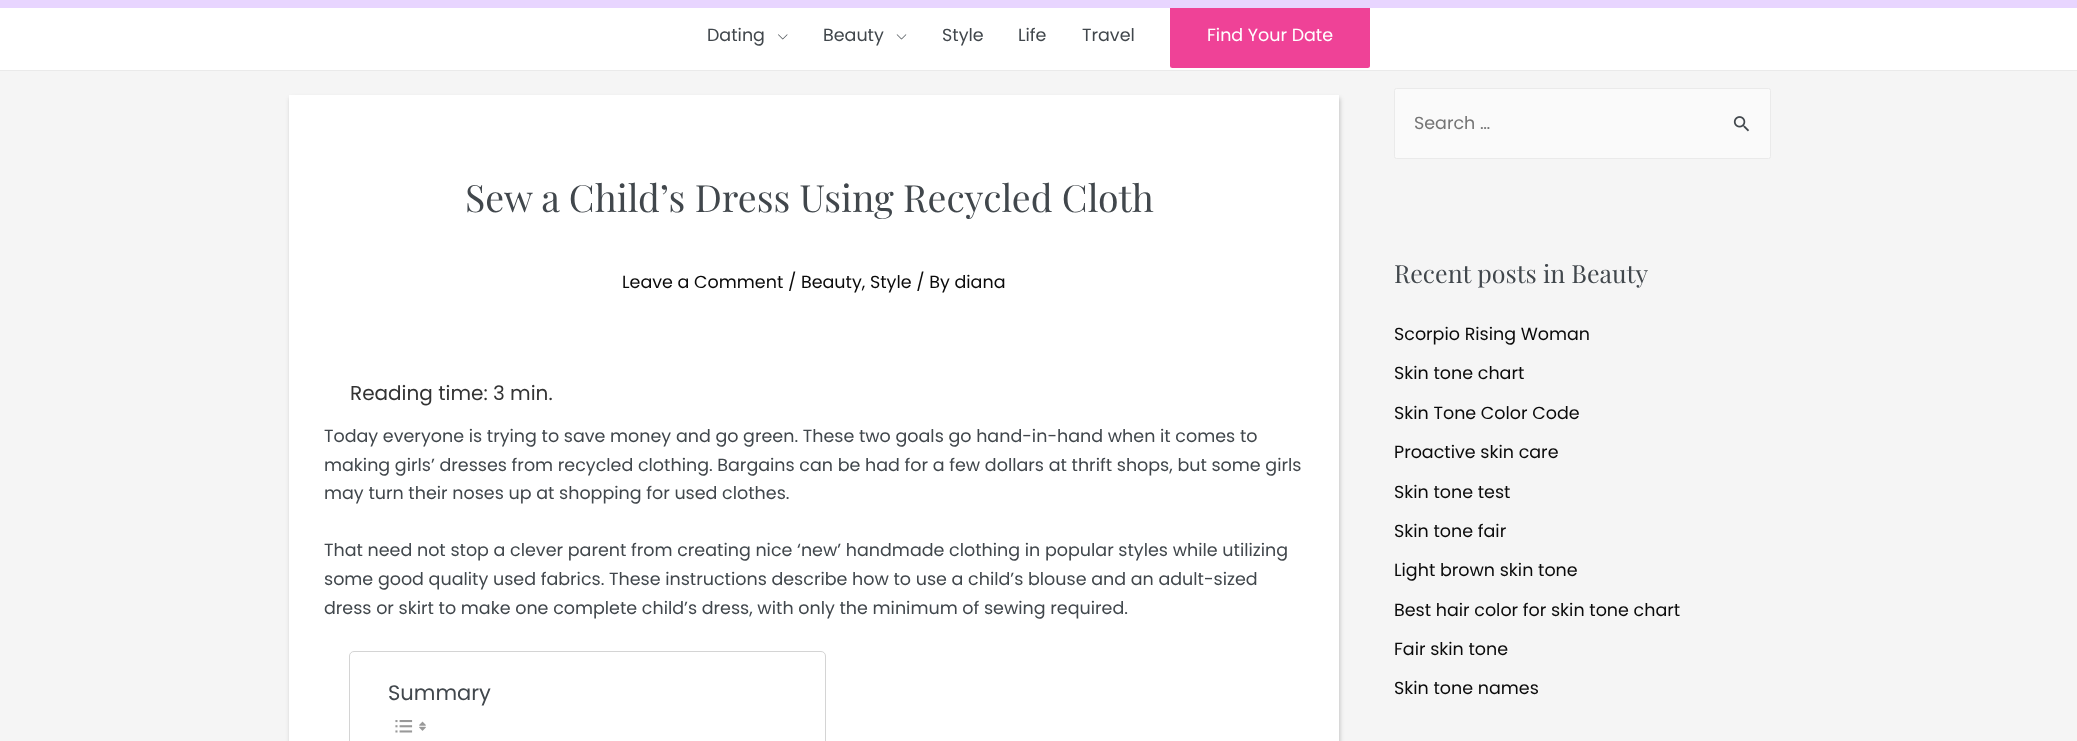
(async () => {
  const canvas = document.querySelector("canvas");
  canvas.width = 2077;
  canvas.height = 741;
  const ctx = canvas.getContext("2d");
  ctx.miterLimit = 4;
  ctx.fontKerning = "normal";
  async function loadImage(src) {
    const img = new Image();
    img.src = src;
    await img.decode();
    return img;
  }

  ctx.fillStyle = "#f5f5f5";
  ctx.fillRect(0, 0, 2077, 741);
  ctx.fillStyle = "#ffffff";
  ctx.fillRect(0, 8, 2077, 62);
  ctx.fillStyle = "#ef4297";
  ctx.beginPath();
  ctx.roundRect(1170, 3, 200, 65, 2.5);
  ctx.fill();
  ctx.fillStyle = "#e8d5ff";
  ctx.fillRect(0, 0, 2077, 8);
  ctx.fillStyle = "#eaeaea";
  ctx.fillRect(0, 70, 2077, 1);
  ctx.drawImage(await loadImage("img/1.png"), 778, 34, 10, 6);
  ctx.drawImage(await loadImage("img/2.png"), 896, 34, 11, 6);
  ctx.fillStyle = "rgba(0, 0, 0, 0.2)";
  ctx.filter = "blur(2px)";
  ctx.beginPath();
  ctx.rect(290, 98, 1050, 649);
  ctx.fill();
  ctx.filter = "none";
  ctx.fillStyle = "#ffffff";
  ctx.fillRect(289, 95, 1050, 646);
  ctx.beginPath();
  ctx.roundRect(349.5, 651.5, 476, 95, 4.5);
  ctx.strokeStyle = "#d4d4d4";
  ctx.stroke();
  ctx.drawImage(await loadImage("img/3.png"), 395, 720, 18, 13);
  ctx.drawImage(await loadImage("img/4.png"), 419, 721, 7, 10);
  ctx.fillStyle = "#fafafa";
  ctx.beginPath();
  ctx.roundRect(1394.5, 88.5, 376, 70, 2);
  ctx.fill();
  ctx.strokeStyle = "#eaeaea";
  ctx.stroke();
  ctx.drawImage(await loadImage("img/5.png"), 1733, 116, 17, 16);
  ctx.font = "17.5px Poppins";
  ctx.fillStyle = "#41474c";
  for (const [text, x, y] of [
    ["Dating", 707, 41],
    ["Beauty", 823, 41],
    ["Style", 942, 41],
    ["Life", 1018, 41],
    ["Travel", 1082, 41],
  ]) {
    ctx.fillText(text, x, y);
  }
  ctx.fillStyle = "#ffffff";
  ctx.fillText("Find Your Date", 1207, 41);
  ctx.font = "37.5px Playfair Display";
  ctx.fillStyle = "#41474c";
  ctx.fillText("Sew a Child’s Dress Using Recycled Cloth", 465, 212);
  ctx.font = "17.5px Poppins";
  ctx.fillStyle = "#0a0a0a";
  ctx.fillText("Leave a Comment / Beauty, Style / By diana", 622, 288);
  ctx.font = "20px Poppins";
  ctx.fillStyle = "#333333";
  ctx.fillText("Reading time: 3 min.", 350, 400);
  ctx.font = "17.5px Poppins";
  ctx.fillStyle = "#41474c";
  for (const [text, x, y] of [
    ["Today everyone is trying to save money and go green. These two goals go hand-in-hand when it comes to", 324, 442],
    ["making girls’ dresses from recycled clothing. Bargains can be had for a few dollars at thrift shops, but some girls", 324, 471],
    ["may turn their noses up at shopping for used clothes.", 324, 499],
    ["That need not stop a clever parent from creating nice ‘new’ handmade clothing in popular styles while utilizing", 324, 556],
    ["some good quality used fabrics. These instructions describe how to use a child’s blouse and an adult-sized", 324, 585],
    ["dress or skirt to make one complete child’s dress, with only the minimum of sewing required.", 324, 614],
  ]) {
    ctx.fillText(text, x, y);
  }
  ctx.font = "21px Poppins";
  ctx.fillText("Summary", 388, 700);
  ctx.font = "17.5px Poppins";
  ctx.fillStyle = "#757575";
  ctx.fillText("Search …", 1414, 129);
  ctx.font = "25px Playfair Display";
  ctx.fillStyle = "#41474c";
  ctx.fillText("Recent posts in Beauty", 1394, 283);
  ctx.font = "17.5px Poppins";
  ctx.fillStyle = "#0a0a0a";
  for (const [text, x, y] of [
    ["Scorpio Rising Woman", 1394, 340],
    ["Skin tone chart", 1394, 379],
    ["Skin Tone Color Code", 1394, 419],
    ["Proactive skin care", 1394, 458],
    ["Skin tone test", 1394, 498],
    ["Skin tone fair", 1394, 537],
    ["Light brown skin tone", 1394, 576],
    ["Best hair color for skin tone chart", 1394, 616],
    ["Fair skin tone", 1394, 655],
    ["Skin tone names", 1394, 694],
  ]) {
    ctx.fillText(text, x, y);
  }
})();
